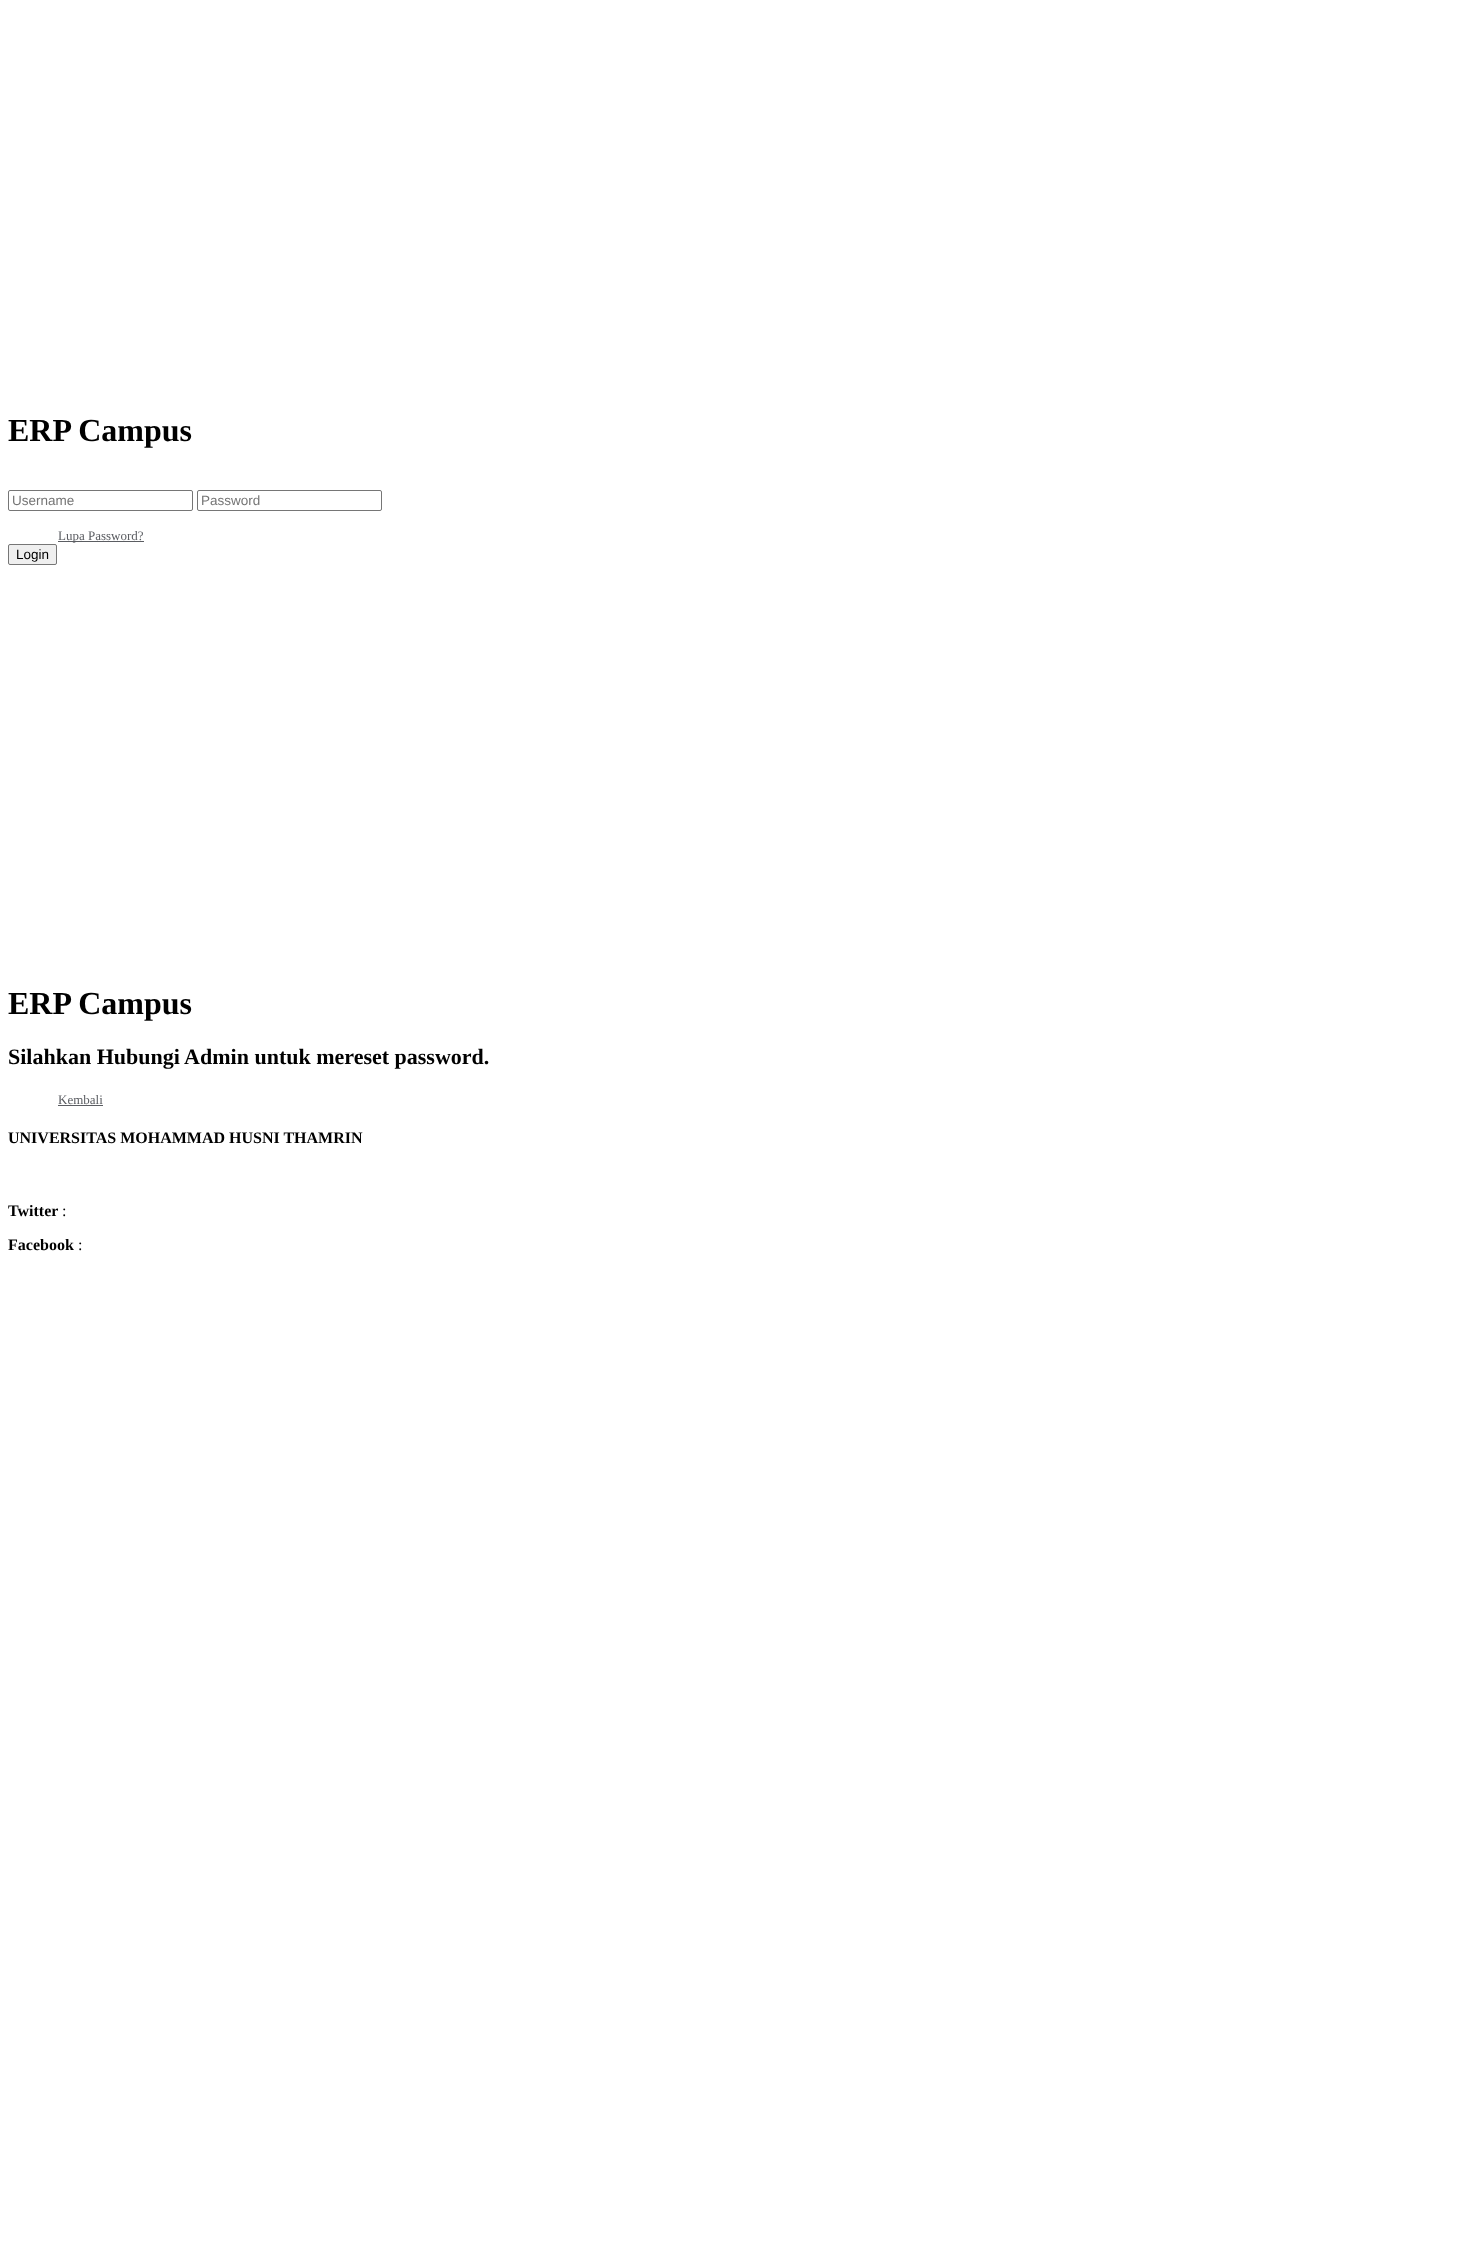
(async () => {
  const canvas = document.querySelector("canvas");
  canvas.width = 1471;
  canvas.height = 2264;
  const ctx = canvas.getContext("2d");
  ctx.miterLimit = 4;
  ctx.fontKerning = "normal";

  ctx.fillStyle = "#ffffff";
  ctx.fillRect(0, 0, 1471, 2264);
  ctx.beginPath();
  ctx.roundRect(8.5, 490.5, 184, 20, 1.5);
  ctx.strokeStyle = "#767676";
  ctx.stroke();
  ctx.beginPath();
  ctx.roundRect(197.5, 490.5, 184, 20, 1.5);
  ctx.stroke();
  ctx.fillStyle = "#5b5d62";
  ctx.fillRect(58, 541, 86, 1);
  ctx.fillStyle = "#efefef";
  ctx.beginPath();
  ctx.roundRect(8.5, 544.5, 48, 20, 1.5);
  ctx.fill();
  ctx.stroke();
  ctx.fillStyle = "#5b5d62";
  ctx.fillRect(58, 1105, 45, 1);
  ctx.font = "bold 32px Liberation Serif";
  ctx.fillStyle = "#000000";
  ctx.fillText("ERP Campus", 8, 441);
  ctx.font = "13.5px Liberation Sans";
  ctx.fillStyle = "#757575";
  ctx.fillText("Username", 12, 505);
  ctx.fillText("Password", 201, 505);
  ctx.font = "13px Liberation Serif";
  ctx.fillStyle = "#5b5d62";
  ctx.fillText("Lupa Password?", 58, 540);
  ctx.font = "13.5px Liberation Sans";
  ctx.fillStyle = "#000000";
  ctx.fillText("Login", 16, 559);
  ctx.font = "bold 32px Liberation Serif";
  ctx.fillText("ERP Campus", 8, 1014);
  ctx.font = "bold 22px Liberation Serif";
  ctx.fillText("Silahkan Hubungi Admin untuk mereset password.", 8, 1064);
  ctx.font = "13px Liberation Serif";
  ctx.fillStyle = "#5b5d62";
  ctx.fillText("Kembali", 58, 1104);
  ctx.font = "bold 16px Liberation Serif";
  ctx.fillStyle = "#000000";
  ctx.fillText("UNIVERSITAS MOHAMMAD HUSNI THAMRIN", 8, 1143);
  ctx.fillText("Twitter", 8, 1216);
  ctx.font = "16px Liberation Serif";
  ctx.fillText(":", 62, 1216);
  ctx.font = "bold 16px Liberation Serif";
  ctx.fillText("Facebook", 8, 1250);
  ctx.font = "16px Liberation Serif";
  ctx.fillText(":", 78, 1250);
})();
